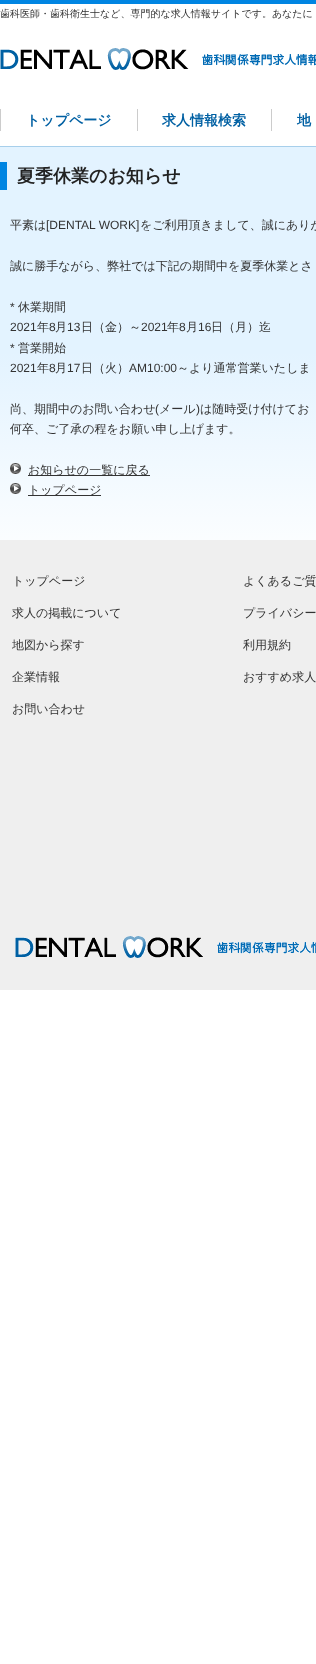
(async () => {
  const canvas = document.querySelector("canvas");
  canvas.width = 316;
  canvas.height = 1664;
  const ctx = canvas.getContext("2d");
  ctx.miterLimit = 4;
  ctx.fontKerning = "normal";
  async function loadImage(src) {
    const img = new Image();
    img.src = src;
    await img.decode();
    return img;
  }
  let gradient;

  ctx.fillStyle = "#ffffff";
  ctx.fillRect(0, 0, 316, 1664);
  ctx.fillStyle = "#0085e2";
  ctx.fillRect(0, 0, 316, 4);
  gradient = ctx.createLinearGradient(158, 24, 158, 990);
  gradient.addColorStop(0.1, "#e3f3ff");
  gradient.addColorStop(0.34, "#e3f3ff");
  gradient.addColorStop(0.57, "#ffffff");
  ctx.fillStyle = gradient;
  ctx.fillRect(0, 147, 316, 393);
  ctx.drawImage(await loadImage("img/1.png"), 0, 48, 316, 22);
  for (const [x, y, w, h, color] of [
    [0, 146, 316, 1, "#a7cfeb"],
    [0, 109, 1, 22, "#cccccc"],
    [137, 109, 1, 22, "#cccccc"],
    [271, 109, 1, 22, "#cccccc"],
    [0, 162, 7, 28, "#0085e2"],
  ]) {
    ctx.fillStyle = color;
    ctx.fillRect(x, y, w, h);
  }
  ctx.drawImage(await loadImage("img/2.png"), 10, 463, 11, 11);
  ctx.fillStyle = "#333333";
  ctx.fillRect(28, 475, 122, 1);
  ctx.drawImage(await loadImage("img/3.png"), 10, 483, 11, 11);
  ctx.fillRect(28, 495, 73, 1);
  ctx.fillStyle = "#efefef";
  ctx.fillRect(0, 540, 316, 450);
  ctx.drawImage(await loadImage("img/4.png"), 15, 936, 301, 22);
  ctx.font = "500 10px WenQuanYi Zen Hei";
  ctx.fillStyle = "#333333";
  ctx.fillText("歯科医師・歯科衛生士など、専門的な求人情報サイトです。あなたに", 0, 17);
  ctx.font = "bold 14px WenQuanYi Zen Hei";
  ctx.fillStyle = "#0060a3";
  for (const [text, x, y] of [
    ["トップページ", 26, 125],
    ["求人情報検索", 162, 125],
    ["地", 297, 125],
  ]) {
    ctx.fillText(text, x, y);
  }
  ctx.font = "bold 18px WenQuanYi Zen Hei";
  ctx.fillStyle = "#222222";
  ctx.fillText("夏季休業のお知らせ", 17, 182);
  ctx.font = "500 12px WenQuanYi Zen Hei";
  ctx.fillStyle = "#333333";
  ctx.fillText("平素は", 10, 229);
  ctx.font = "12px Liberation Sans";
  ctx.fillText("[DENTAL WORK]", 46, 229);
  ctx.font = "500 12px WenQuanYi Zen Hei";
  ctx.fillText("をご利用頂きまして、誠にありが", 140, 229);
  ctx.fillText("誠に勝手ながら、弊社では下記の期間中を夏季休業とさ", 10, 270);
  ctx.font = "12px Liberation Sans";
  ctx.fillText("*", 10, 311);
  ctx.font = "500 12px WenQuanYi Zen Hei";
  ctx.fillText("休業期間", 18, 311);
  ctx.font = "12px Liberation Sans";
  ctx.fillText("2021", 10, 331);
  ctx.font = "500 12px WenQuanYi Zen Hei";
  ctx.fillText("年", 37, 331);
  ctx.font = "12px Liberation Sans";
  ctx.fillText("8", 49, 331);
  ctx.font = "500 12px WenQuanYi Zen Hei";
  ctx.fillText("月", 55, 331);
  ctx.font = "12px Liberation Sans";
  ctx.fillText("13", 67, 331);
  ctx.font = "500 12px WenQuanYi Zen Hei";
  ctx.fillText("日（金）～", 81, 331);
  ctx.font = "12px Liberation Sans";
  ctx.fillText("2021", 141, 331);
  ctx.font = "500 12px WenQuanYi Zen Hei";
  ctx.fillText("年", 167, 331);
  ctx.font = "12px Liberation Sans";
  ctx.fillText("8", 179, 331);
  ctx.font = "500 12px WenQuanYi Zen Hei";
  ctx.fillText("月", 186, 331);
  ctx.font = "12px Liberation Sans";
  ctx.fillText("16", 198, 331);
  ctx.font = "500 12px WenQuanYi Zen Hei";
  ctx.fillText("日（月）迄", 211, 331);
  ctx.font = "12px Liberation Sans";
  ctx.fillText("*", 10, 352);
  ctx.font = "500 12px WenQuanYi Zen Hei";
  ctx.fillText("営業開始", 18, 352);
  ctx.font = "12px Liberation Sans";
  ctx.fillText("2021", 10, 372);
  ctx.font = "500 12px WenQuanYi Zen Hei";
  ctx.fillText("年", 37, 372);
  ctx.font = "12px Liberation Sans";
  ctx.fillText("8", 49, 372);
  ctx.font = "500 12px WenQuanYi Zen Hei";
  ctx.fillText("月", 55, 372);
  ctx.font = "12px Liberation Sans";
  ctx.fillText("17", 67, 372);
  ctx.font = "500 12px WenQuanYi Zen Hei";
  ctx.fillText("日（火）", 81, 372);
  ctx.font = "12px Liberation Sans";
  ctx.fillText("AM10:00", 129, 372);
  ctx.font = "500 12px WenQuanYi Zen Hei";
  ctx.fillText("～より通常営業いたしま", 177, 372);
  ctx.fillText("尚、期間中のお問い合わせ", 10, 413);
  ctx.font = "12px Liberation Sans";
  ctx.fillText("(", 155, 413);
  ctx.font = "500 12px WenQuanYi Zen Hei";
  ctx.fillText("メール", 159, 413);
  ctx.font = "12px Liberation Sans";
  ctx.fillText(")", 196, 413);
  ctx.font = "500 12px WenQuanYi Zen Hei";
  for (const [text, x, y] of [
    ["は随時受け付けてお", 200, 413],
    ["何卒、ご了承の程をお願い申し上げます。", 10, 433],
    ["お知らせの一覧に戻る", 28, 474],
    ["トップページ", 28, 494],
    ["トップページ", 12, 585],
    ["求人の掲載について", 12, 617],
    ["地図から探す", 12, 649],
    ["企業情報", 12, 681],
    ["お問い合わせ", 12, 713],
    ["よくあるご質", 243, 585],
    ["プライバシー", 243, 617],
    ["利用規約", 243, 649],
    ["おすすめ求人", 243, 681],
  ]) {
    ctx.fillText(text, x, y);
  }
})();
